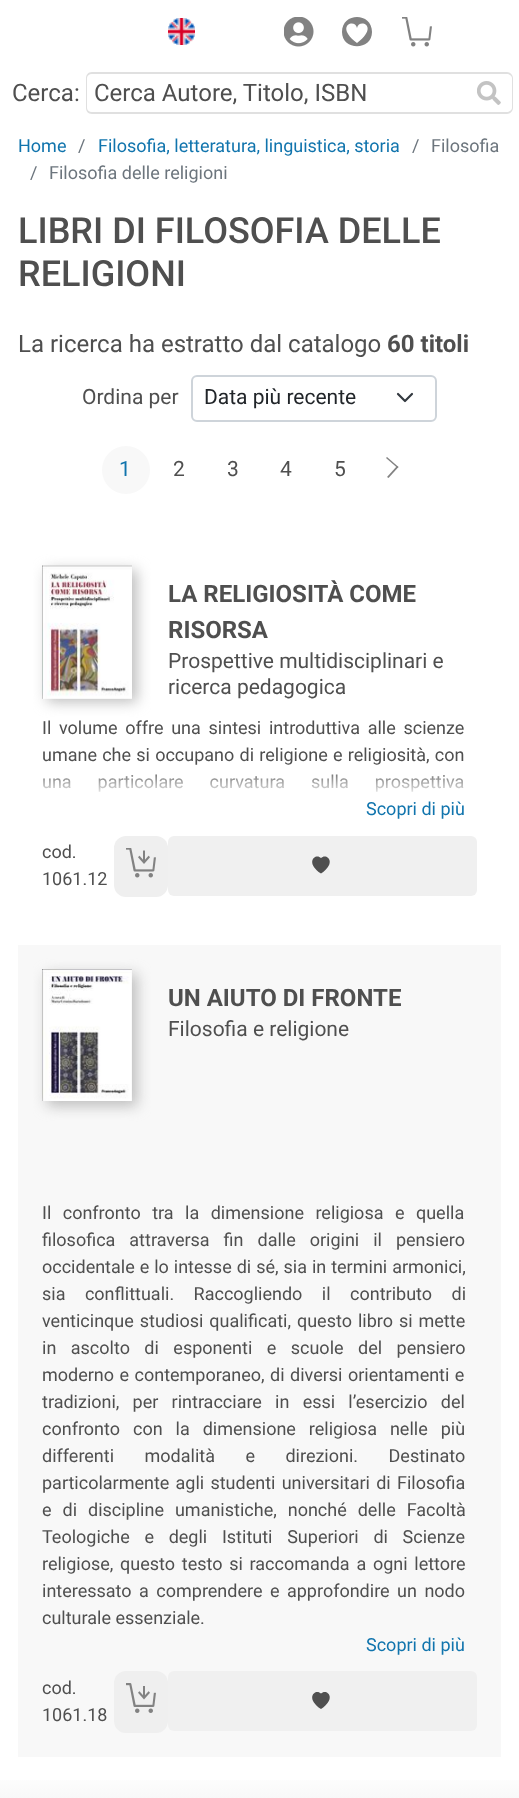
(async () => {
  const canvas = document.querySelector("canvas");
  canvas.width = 519;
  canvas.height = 1798;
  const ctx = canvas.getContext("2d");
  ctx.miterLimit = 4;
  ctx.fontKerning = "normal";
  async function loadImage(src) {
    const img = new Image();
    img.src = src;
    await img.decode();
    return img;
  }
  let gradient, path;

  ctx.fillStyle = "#ffffff";
  ctx.fillRect(0, 0, 519, 1798);
  ctx.drawImage(await loadImage("img/1.png"), 168, 18, 27, 27);
  ctx.drawImage(await loadImage("img/2.png"), 284, 17, 30, 30);
  ctx.fillStyle = "#828282";
  path = new Path2D("M357 43C334 26 355 18 357 28C359 18 380 26 357 43ZM372 32C372 12 342 12 342 32C342 51 372 51 372 32Z");
  ctx.fill(path);
  ctx.drawImage(await loadImage("img/3.png"), 402, 17, 30, 30);
  ctx.fillStyle = "#e0e0e0";
  path = new Path2D("M92 72H465V114H92C88 114 86 111 86 108V78C86 75 88 72 92 72ZM92 74H465V112H92C89 112 87 110 87 108V78C87 76 89 74 92 74Z");
  ctx.fill(path, "evenodd");
  path = new Path2D("M465 72H507C510 72 513 75 513 78V108C513 111 510 114 507 114H465ZM465 74H507C509 74 512 76 512 78V108C512 110 509 112 507 112H465Z");
  ctx.fill(path, "evenodd");
  ctx.drawImage(await loadImage("img/4.png"), 477, 81, 24, 24);
  path = new Path2D("M398 394L405 401L412 394");
  ctx.strokeStyle = "#343a40";
  ctx.lineWidth = 2.2;
  ctx.lineCap = "round";
  ctx.lineJoin = "round";
  ctx.stroke(path);
  ctx.beginPath();
  ctx.roundRect(192, 376, 244, 45, 5);
  ctx.strokeStyle = "#ced4da";
  ctx.lineWidth = 2;
  ctx.lineJoin = "miter";
  ctx.stroke();
  ctx.fillStyle = "#f8f8f8";
  ctx.beginPath();
  ctx.arc(126, 470, 24, 0, Math.PI * 2);
  ctx.fill();
  ctx.fillStyle = "#828282";
  path = new Path2D("M397.5 468L386 458L387 457L398.5 467Z");
  ctx.fill(path);
  path = new Path2D("M388.5 478L387 477L397 466L398.5 467Z");
  ctx.fill(path);
  ctx.fillStyle = "#bdbdbd";
  ctx.filter = "blur(7px)";
  ctx.beginPath();
  ctx.rect(47, 570, 90, 132);
  ctx.fill();
  ctx.filter = "none";
  ctx.drawImage(await loadImage("img/5.png"), 42, 565, 90, 134);
  ctx.fillStyle = "#efefef";
  ctx.beginPath();
  ctx.roundRect(114, 836, 54, 61, 12);
  ctx.fill();
  ctx.drawImage(await loadImage("img/6.png"), 126, 848, 30, 30);
  ctx.fillStyle = "#f0f0f0";
  ctx.beginPath();
  ctx.roundRect(168, 836, 309, 60, 6);
  ctx.fill();
  ctx.fillStyle = "#4f4f4f";
  path = new Path2D("M321 858C326 852.5 338 862 321 873.5C304 862 316 852.5 321 858Z");
  ctx.fill(path);
  ctx.fillStyle = "#f8f8f8";
  ctx.fillRect(18, 945, 483, 812);
  ctx.fillStyle = "#bdbdbd";
  ctx.filter = "blur(7px)";
  ctx.beginPath();
  ctx.rect(47, 974, 90, 132);
  ctx.fill();
  ctx.filter = "none";
  ctx.drawImage(await loadImage("img/7.png"), 42, 969, 90, 132);
  gradient = ctx.createLinearGradient(260, 1770, 260, 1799);
  gradient.addColorStop(0, "#ffffff");
  gradient.addColorStop(1, "#f8f8f8");
  ctx.fillStyle = gradient;
  ctx.fillRect(0, 1780, 519, 18);
  ctx.fillStyle = "#efefef";
  ctx.beginPath();
  ctx.roundRect(114, 1671, 54, 62, 12);
  ctx.fill();
  ctx.drawImage(await loadImage("img/8.png"), 126, 1683, 30, 30);
  ctx.fillStyle = "#f0f0f0";
  ctx.beginPath();
  ctx.roundRect(168, 1671, 309, 60, 6);
  ctx.fill();
  ctx.fillStyle = "#4f4f4f";
  path = new Path2D("M321 1693.5C326 1688 338 1697.5 321 1709C304 1697.5 316 1688 321 1693.5Z");
  ctx.fill(path);
  ctx.font = "24px Roboto";
  ctx.fillText("Cerca:", 12, 101);
  ctx.fillText("Cerca Autore, Titolo, ISBN", 94, 101);
  ctx.font = "18px Roboto";
  ctx.fillStyle = "#1074ad";
  ctx.fillText("Home", 18, 152);
  ctx.fillStyle = "#6c757d";
  ctx.fillText("/", 78, 152);
  ctx.fillStyle = "#1074ad";
  ctx.fillText("Filosofia, letteratura, linguistica, storia", 98, 152);
  ctx.fillStyle = "#6c757d";
  for (const [text, x, y] of [
    ["/", 412, 152],
    ["Filosofia", 431, 152],
    ["/", 30, 179],
    ["Filosofia delle religioni", 49, 179],
  ]) {
    ctx.fillText(text, x, y);
  }
  ctx.font = "500 36px Roboto";
  ctx.fillStyle = "#4f4f4f";
  ctx.fillText("LIBRI DI FILOSOFIA DELLE", 18, 243);
  ctx.fillText("RELIGIONI", 18, 286);
  ctx.font = "24px Roboto";
  ctx.fillText("La ricerca ha estratto dal catalogo", 18, 352);
  ctx.font = "bold 24px Roboto";
  ctx.fillText("60 titoli", 387, 352);
  ctx.font = "21px Roboto";
  ctx.fillText("Ordina per", 82, 404);
  ctx.fillStyle = "#212529";
  ctx.fillText("Data più recente", 204, 404);
  ctx.fillStyle = "#1074ad";
  ctx.fillText("1", 119, 476);
  ctx.fillStyle = "#4f4f4f";
  for (const [text, x, y] of [
    ["2", 173, 476],
    ["3", 227, 476],
    ["4", 280, 476],
    ["5", 334, 476],
  ]) {
    ctx.fillText(text, x, y);
  }
  ctx.font = "bold 24px Roboto";
  ctx.fillText("LA RELIGIOSITÀ COME", 168, 602);
  ctx.fillText("RISORSA", 168, 638);
  ctx.font = "21px Roboto";
  ctx.fillText("Prospettive multidisciplinari e", 168, 668);
  ctx.fillText("ricerca pedagogica", 168, 694);
  ctx.wordSpacing = "3.25px";
  ctx.font = "18px Roboto";
  ctx.fillText("Il volume offre una sintesi introduttiva alle scienze", 42, 734);
  ctx.wordSpacing = "0.75px";
  ctx.fillText("umane che si occupano di religione e religiosità, con", 42, 761);
  ctx.wordSpacing = "21.5px";
  ctx.fillText("una particolare curvatura sulla prospettiva", 42, 788);
  gradient = ctx.createLinearGradient(254, 767, 254, 797);
  gradient.addColorStop(0, "rgba(255, 255, 255, 0)");
  gradient.addColorStop(1, "#ffffff");
  ctx.fillStyle = gradient;
  ctx.fillRect(43, 774, 421, 18);
  ctx.wordSpacing = "0px";
  ctx.fillStyle = "#1074ad";
  ctx.fillText("Scopri di più", 366, 815);
  ctx.fillStyle = "#4f4f4f";
  ctx.fillText("cod.", 42, 858);
  ctx.fillText("1061.12", 42, 885);
  ctx.font = "bold 24px Roboto";
  ctx.fillText("UN AIUTO DI FRONTE", 168, 1006);
  ctx.font = "21px Roboto";
  ctx.fillText("Filosofia e religione", 168, 1036);
  ctx.wordSpacing = "7px";
  ctx.font = "18px Roboto";
  ctx.fillText("Il confronto tra la dimensione religiosa e quella", 42, 1219);
  ctx.wordSpacing = "9.5px";
  ctx.fillText("filosofica attraversa fin dalle origini il pensiero", 42, 1246);
  ctx.wordSpacing = "0.5px";
  ctx.fillText("occidentale e lo intesse di sé, sia in termini armonici,", 42, 1273);
  ctx.wordSpacing = "15px";
  ctx.fillText("sia conflittuali. Raccogliendo il contributo di", 42, 1300);
  ctx.wordSpacing = "1.5px";
  ctx.fillText("venticinque studiosi qualificati, questo libro si mette", 42, 1327);
  ctx.wordSpacing = "10px";
  ctx.fillText("in ascolto di esponenti e scuole del pensiero", 42, 1354);
  ctx.wordSpacing = "1px";
  ctx.fillText("moderno e contemporaneo, di diversi orientamenti e", 42, 1381);
  ctx.wordSpacing = "8.75px";
  ctx.fillText("tradizioni, per rintracciare in essi l’esercizio del", 42, 1408);
  ctx.wordSpacing = "8.5px";
  ctx.fillText("confronto con la dimensione religiosa nelle più", 42, 1435);
  ctx.wordSpacing = "26px";
  ctx.fillText("differenti modalità e direzioni. Destinato", 42, 1462);
  ctx.wordSpacing = "1.75px";
  ctx.fillText("particolarmente agli studenti universitari di Filosofia", 42, 1489);
  ctx.wordSpacing = "6.5px";
  ctx.fillText("e di discipline umanistiche, nonché delle Facoltà", 42, 1516);
  ctx.wordSpacing = "10.25px";
  ctx.fillText("Teologiche e degli Istituti Superiori di Scienze", 42, 1543);
  ctx.wordSpacing = "2.25px";
  ctx.fillText("religiose, questo testo si raccomanda a ogni lettore", 42, 1570);
  ctx.wordSpacing = "3px";
  ctx.fillText("interessato a comprendere e approfondire un nodo", 42, 1597);
  ctx.wordSpacing = "0px";
  ctx.fillText("culturale essenziale.", 42, 1624);
  ctx.fillStyle = "#1074ad";
  ctx.fillText("Scopri di più", 366, 1651);
  ctx.fillStyle = "#4f4f4f";
  ctx.fillText("cod.", 42, 1694);
  ctx.fillText("1061.18", 42, 1721);
})();
